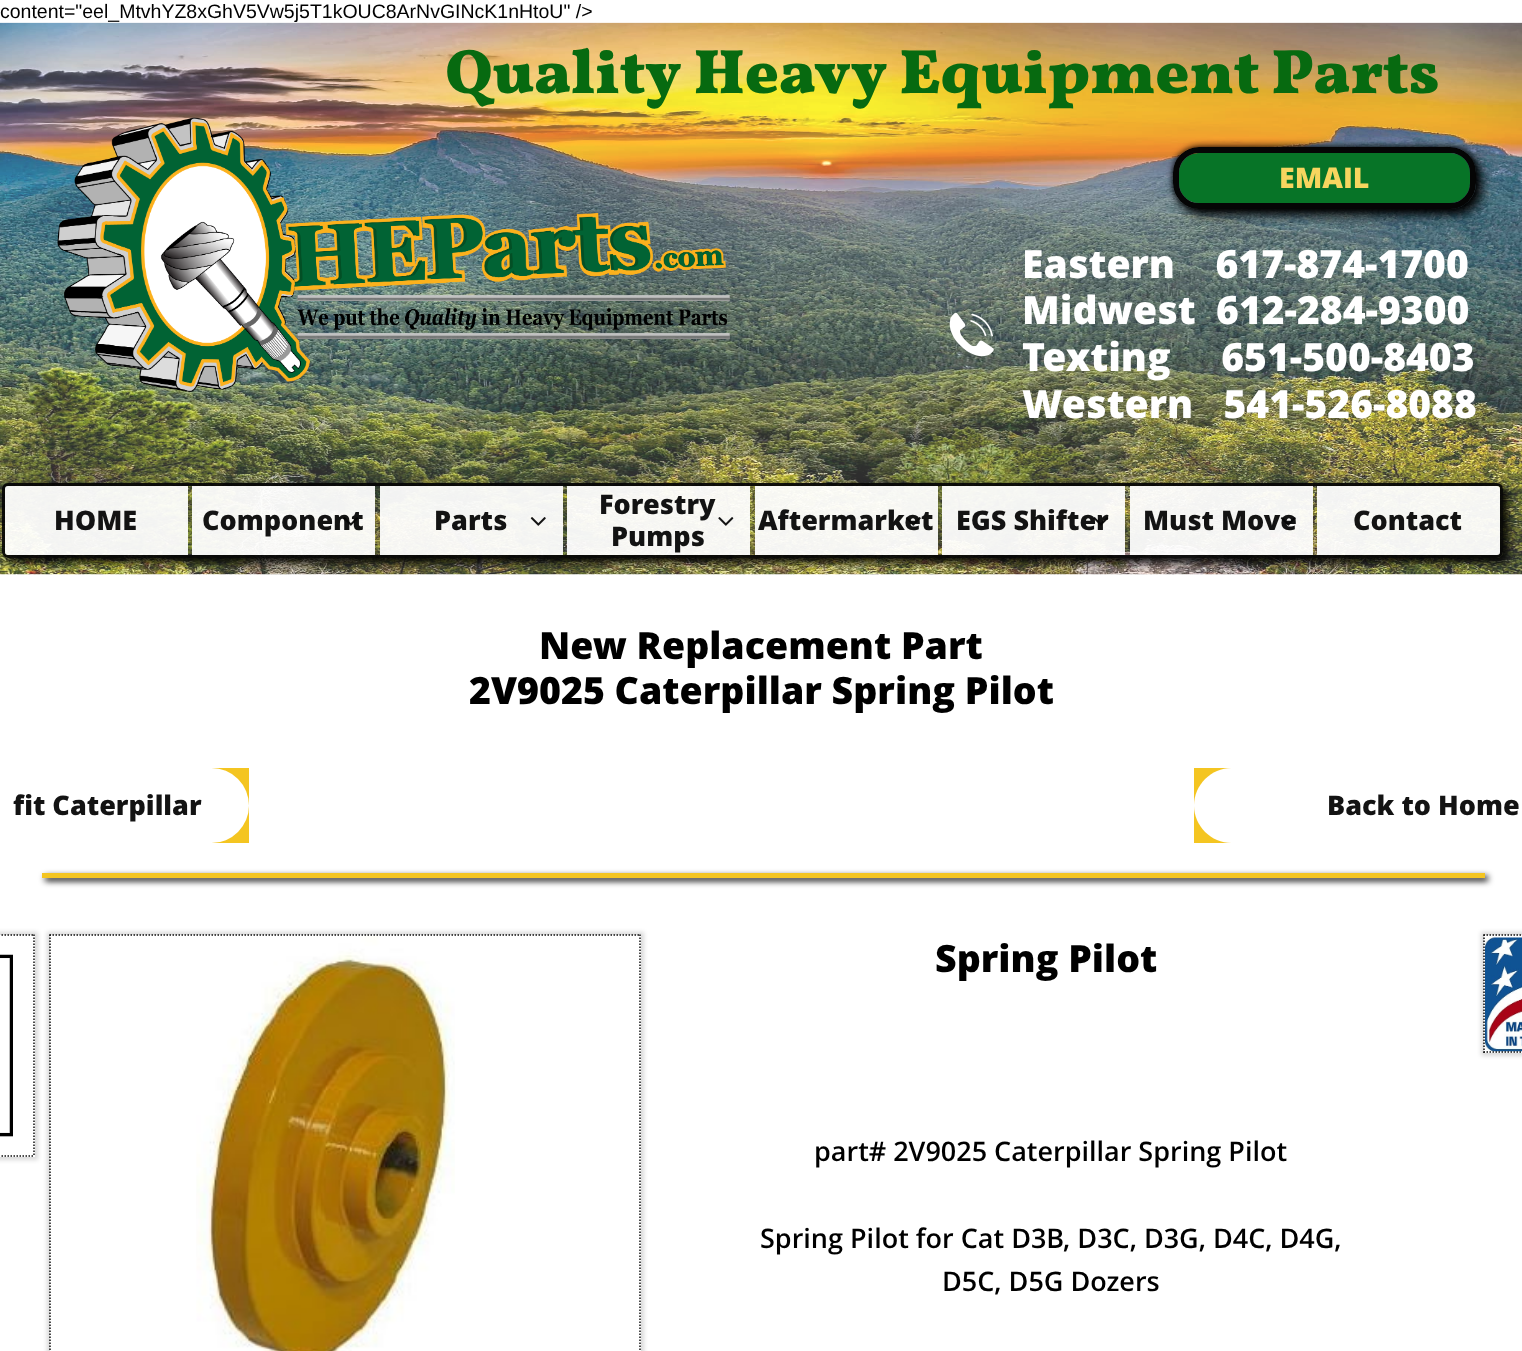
(async () => {
  const canvas = document.querySelector("canvas");
  canvas.width = 1522;
  canvas.height = 1351;
  const ctx = canvas.getContext("2d");
  ctx.miterLimit = 4;
  ctx.fontKerning = "normal";
  async function loadImage(src) {
    const img = new Image();
    img.src = src;
    await img.decode();
    return img;
  }
  let path;

  ctx.fillStyle = "#ffffff";
  ctx.fillRect(0, 0, 1522, 1351);
  ctx.fillStyle = "#f4c521";
  ctx.fillRect(212, 768, 37, 75);
  ctx.fillStyle = "#ffffff";
  ctx.beginPath();
  ctx.roundRect(0, 768, 249, 75, [0, 37.5, 37.5, 0]);
  ctx.fill();
  ctx.fillStyle = "#f4c521";
  ctx.fillRect(1194, 768, 37, 75);
  ctx.fillStyle = "#ffffff";
  path = new Path2D("M1231.5 768H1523V843H1231.5C1211 843 1194 826 1194 805.5C1194 785 1211 768 1231.5 768Z");
  ctx.fill(path);
  ctx.fillStyle = "#000000";
  ctx.filter = "blur(3px)";
  ctx.beginPath();
  ctx.rect(45, 876, 1443, 5);
  ctx.fill();
  ctx.filter = "none";
  ctx.fillStyle = "#f4c521";
  ctx.fillRect(42, 873, 1443, 5);
  ctx.drawImage(await loadImage("img/10.png"), 0, 954, 13, 183);
  ctx.save();
  path = new Path2D("M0 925H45V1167H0ZM-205 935H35V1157H-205Z");
  ctx.clip(path, "evenodd");
  ctx.fillStyle = "rgba(0, 0, 0, 0.15)";
  ctx.filter = "blur(2px)";
  ctx.beginPath();
  ctx.rect(-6, 932, 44, 228);
  ctx.fill();
  ctx.filter = "none";
  ctx.restore();
  path = new Path2D("M-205.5 935H34.5");
  ctx.strokeStyle = "#0f0f0f";
  ctx.lineWidth = 1.5;
  ctx.setLineDash([1.5, 1.5]);
  ctx.stroke(path);
  path = new Path2D("M34 934.5V1156.5");
  ctx.stroke(path);
  path = new Path2D("M-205.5 1156H34.5");
  ctx.stroke(path);
  ctx.drawImage(await loadImage("img/11.png"), 196, 936, 259, 415);
  ctx.save();
  path = new Path2D("M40 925H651V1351H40ZM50 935H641V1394H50Z");
  ctx.clip(path, "evenodd");
  ctx.fillStyle = "rgba(0, 0, 0, 0.15)";
  ctx.filter = "blur(2px)";
  ctx.beginPath();
  ctx.rect(47, 932, 597, 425);
  ctx.fill();
  ctx.filter = "none";
  ctx.restore();
  path = new Path2D("M49.5 935H640.5");
  ctx.stroke(path);
  path = new Path2D("M640 934.5V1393.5");
  ctx.stroke(path);
  path = new Path2D("M50 934.5V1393.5");
  ctx.stroke(path);
  ctx.drawImage(await loadImage("img/12.png"), 1485, 937, 37, 115);
  ctx.save();
  path = new Path2D("M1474 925H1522V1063H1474ZM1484 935H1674V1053H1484Z");
  ctx.clip(path, "evenodd");
  ctx.fillStyle = "rgba(0, 0, 0, 0.15)";
  ctx.filter = "blur(2px)";
  ctx.beginPath();
  ctx.rect(1481, 932, 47, 124);
  ctx.fill();
  ctx.filter = "none";
  ctx.restore();
  path = new Path2D("M1483.5 935H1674");
  ctx.stroke(path);
  path = new Path2D("M1483.5 1052H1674");
  ctx.stroke(path);
  path = new Path2D("M1484 934.5V1053");
  ctx.stroke(path);
  ctx.font = "19.5px Liberation Sans";
  ctx.fillStyle = "#000000";
  ctx.fillText("content=\"eel_MtvhYZ8xGhV5Vw5j5T1kOUC8ArNvGINcK1nHtoU\" />", 0, 18);
  ctx.drawImage(await loadImage("img/1.png"), 0, 22, 1522, 553);
  ctx.font = "bold 63px Vollkorn";
  ctx.fillStyle = "#076a10";
  ctx.fillText("Quality Heavy Equipment Parts", 445, 93);
  ctx.drawImage(await loadImage("img/2.png"), 57, 117, 673, 275);
  ctx.fillStyle = "#077427";
  ctx.beginPath();
  ctx.roundRect(1179, 153, 291, 50, 20);
  ctx.fill();
  ctx.save();
  path = new Path2D("M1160 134H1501V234H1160ZM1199 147H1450C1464.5 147 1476 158.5 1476 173V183C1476 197.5 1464.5 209 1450 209H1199C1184.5 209 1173 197.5 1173 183V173C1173 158.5 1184.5 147 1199 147Z");
  ctx.clip(path, "evenodd");
  ctx.fillStyle = "#000000";
  ctx.filter = "blur(6px)";
  ctx.beginPath();
  ctx.roundRect(1179, 153, 303, 62, 26);
  ctx.fill();
  ctx.filter = "none";
  ctx.restore();
  ctx.save();
  path = new Path2D("M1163 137H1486V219H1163ZM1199 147H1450C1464.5 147 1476 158.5 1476 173V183C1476 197.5 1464.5 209 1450 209H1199C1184.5 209 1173 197.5 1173 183V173C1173 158.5 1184.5 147 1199 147Z");
  ctx.clip(path, "evenodd");
  ctx.fillStyle = "#000000";
  ctx.filter = "blur(3px)";
  ctx.beginPath();
  ctx.roundRect(1173, 147, 303, 62, 26);
  ctx.fill();
  ctx.filter = "none";
  ctx.restore();
  ctx.beginPath();
  ctx.roundRect(1176, 150, 297, 56, 23);
  ctx.strokeStyle = "#050505";
  ctx.lineWidth = 6;
  ctx.setLineDash([]);
  ctx.stroke();
  ctx.font = "800 28.5px Open Sans";
  ctx.fillStyle = "#f7d55f";
  ctx.fillText("EMAIL", 1279, 188);
  ctx.drawImage(await loadImage("img/3.png"), 949, 312, 45, 45);
  ctx.font = "800 39px Open Sans";
  ctx.fillStyle = "#ffffff";
  for (const [text, x, y] of [
    ["Eastern    617-874-1700", 1022, 278],
    ["Midwest  612-284-9300", 1022, 324],
    ["Texting     651-500-8403", 1022, 371],
    ["Western   541-526-8088", 1022, 418],
  ]) {
    ctx.fillText(text, x, y);
  }
  ctx.save();
  path = new Path2D("M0 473H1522V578H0ZM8 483H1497C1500.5 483 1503 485.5 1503 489V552C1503 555.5 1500.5 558 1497 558H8C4.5 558 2 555.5 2 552V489C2 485.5 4.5 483 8 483Z");
  ctx.clip(path, "evenodd");
  ctx.fillStyle = "rgba(0, 0, 0, 0.94)";
  ctx.filter = "blur(4.5px)";
  ctx.beginPath();
  ctx.roundRect(6, 488, 1502, 75, 6);
  ctx.fill();
  ctx.filter = "none";
  ctx.restore();
  ctx.beginPath();
  ctx.roundRect(3.5, 484.5, 1498, 72, 4.5);
  ctx.strokeStyle = "rgba(5, 5, 5, 0.94)";
  ctx.lineWidth = 3;
  ctx.stroke();
  ctx.fillStyle = "rgba(255, 255, 255, 0.94)";
  ctx.beginPath();
  ctx.roundRect(5, 486, 183, 69, [3, 0, 0, 3]);
  ctx.fill();
  ctx.font = "800 27px Open Sans";
  ctx.fillStyle = "#131313";
  ctx.fillText("HOME", 54, 530);
  ctx.fillStyle = "rgba(255, 255, 255, 0.94)";
  ctx.fillRect(192, 486, 183, 69);
  ctx.fillStyle = "#131313";
  ctx.fillText("Component", 202, 530);
  ctx.drawImage(await loadImage("img/4.png"), 343, 517, 15, 9);
  ctx.fillStyle = "rgba(255, 255, 255, 0.94)";
  ctx.fillRect(380, 486, 183, 69);
  ctx.fillStyle = "#131313";
  ctx.fillText("Parts", 434, 530);
  ctx.drawImage(await loadImage("img/5.png"), 530, 517, 16, 9);
  ctx.fillStyle = "rgba(255, 255, 255, 0.94)";
  ctx.fillRect(567, 486, 183, 69);
  ctx.fillStyle = "#131313";
  ctx.fillText("Forestry", 599, 514);
  ctx.fillText("Pumps", 611, 546);
  ctx.drawImage(await loadImage("img/6.png"), 718, 517, 16, 9);
  ctx.fillStyle = "rgba(255, 255, 255, 0.94)";
  ctx.fillRect(755, 486, 183, 69);
  ctx.fillStyle = "#131313";
  ctx.fillText("Aftermarket", 758, 530);
  ctx.drawImage(await loadImage("img/7.png"), 905, 517, 16, 9);
  ctx.fillStyle = "rgba(255, 255, 255, 0.94)";
  ctx.fillRect(942, 486, 183, 69);
  ctx.fillStyle = "#131313";
  ctx.fillText("EGS Shifter", 956, 530);
  ctx.drawImage(await loadImage("img/8.png"), 1093, 517, 16, 9);
  ctx.fillStyle = "rgba(255, 255, 255, 0.94)";
  ctx.fillRect(1130, 486, 183, 69);
  ctx.fillStyle = "#131313";
  ctx.fillText("Must Move", 1143, 530);
  ctx.drawImage(await loadImage("img/9.png"), 1280, 517, 16, 9);
  ctx.fillStyle = "rgba(255, 255, 255, 0.94)";
  ctx.beginPath();
  ctx.roundRect(1317, 486, 183, 69, [0, 3, 3, 0]);
  ctx.fill();
  ctx.fillStyle = "#131313";
  ctx.fillText("Contact", 1353, 530);
  ctx.font = "800 37.5px Open Sans";
  ctx.fillStyle = "#000000";
  ctx.fillText("New Replacement Part", 539, 659);
  ctx.fillText("2V9025 Caterpillar Spring Pilot", 469, 704);
  ctx.font = "800 27px Open Sans";
  ctx.fillStyle = "#131313";
  ctx.fillText("fit Caterpillar", 13, 815);
  ctx.fillText("Back to Home", 1327, 815);
  ctx.font = "800 37.5px Open Sans";
  ctx.fillStyle = "#000000";
  ctx.fillText("Spring Pilot", 935, 972);
  ctx.font = "600 27px Open Sans";
  for (const [text, x, y] of [
    ["part# 2V9025 Caterpillar Spring Pilot", 814, 1161],
    ["Spring Pilot for Cat D3B, D3C, D3G, D4C, D4G,", 760, 1248],
    ["D5C, D5G Dozers", 942, 1291],
  ]) {
    ctx.fillText(text, x, y);
  }
})();
